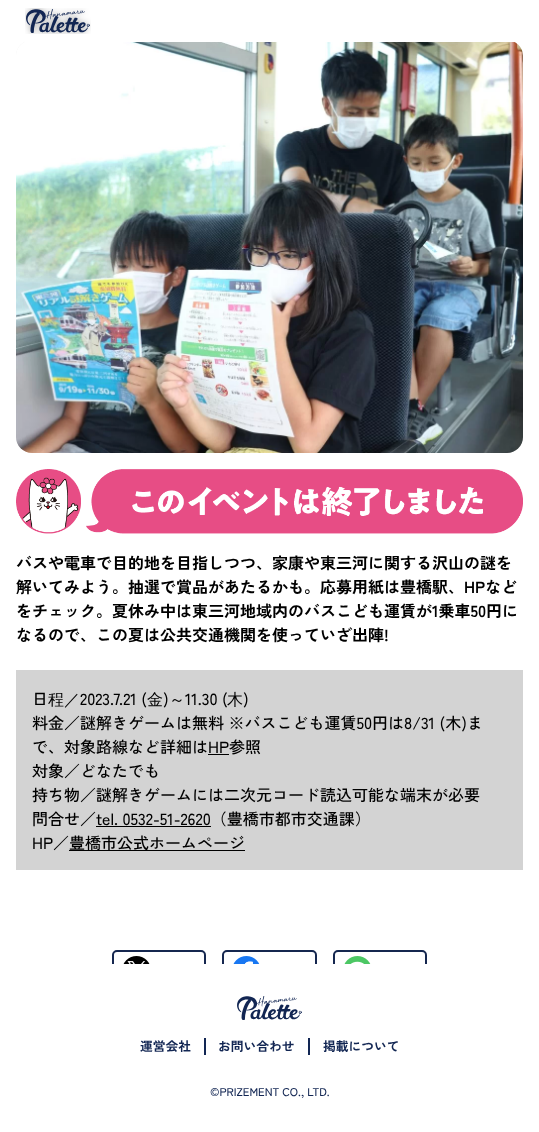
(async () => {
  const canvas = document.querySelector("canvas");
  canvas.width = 539;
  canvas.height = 1132;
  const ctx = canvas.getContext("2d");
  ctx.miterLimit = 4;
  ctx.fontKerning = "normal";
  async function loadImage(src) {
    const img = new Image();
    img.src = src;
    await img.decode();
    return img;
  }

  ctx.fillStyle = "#ffffff";
  ctx.fillRect(0, 0, 539, 1132);
  ctx.fillStyle = "#f0f0f0";
  ctx.beginPath();
  ctx.roundRect(16, 40, 507, 413, 16);
  ctx.fill();
  ctx.fillStyle = "#ffffff";
  ctx.fillRect(25, 40, 489, 2);
  ctx.drawImage(await loadImage("img/1.png"), 25, 8, 66, 26);
  ctx.drawImage(await loadImage("img/2.png"), 16, 42, 507, 411);
  ctx.drawImage(await loadImage("img/3.png"), 16, 469, 507, 65);
  for (const [x, y, w, h, color] of [
    [16, 670, 507, 200, "#d3d3d3"],
    [208, 754, 21, 1, "#000000"],
    [96, 826, 115, 1, "#000000"],
    [69, 850, 176, 1, "#000000"],
  ]) {
    ctx.fillStyle = color;
    ctx.fillRect(x, y, w, h);
  }
  ctx.beginPath();
  ctx.roundRect(113, 951, 92, 38, 4);
  ctx.strokeStyle = "#15274f";
  ctx.lineWidth = 2;
  ctx.stroke();
  ctx.drawImage(await loadImage("img/4.png"), 123, 956, 27, 8);
  ctx.beginPath();
  ctx.roundRect(223, 951, 93, 38, 4);
  ctx.stroke();
  ctx.drawImage(await loadImage("img/5.png"), 233, 956, 27, 8);
  ctx.beginPath();
  ctx.roundRect(334, 951, 92, 38, 4);
  ctx.stroke();
  ctx.drawImage(await loadImage("img/6.png"), 344, 956, 27, 8);
  ctx.fillStyle = "#ffffff";
  ctx.fillRect(112, 964, 315, 26);
  ctx.drawImage(await loadImage("img/7.png"), 237, 996, 65, 24);
  ctx.fillStyle = "#122653";
  ctx.fillRect(204, 1038, 2, 17);
  ctx.fillRect(308, 1038, 2, 17);
  ctx.font = "bold 16px Zen Kaku Gothic New";
  ctx.fillStyle = "#000000";
  for (const [text, x, y] of [
    ["バスや電車で目的地を目指しつつ、家康や東三河に関する沢山の謎を", 16, 569],
    ["解いてみよう。抽選で賞品があたるかも。応募用紙は豊橋駅、HPなど", 16, 593],
    ["をチェック。夏休み中は東三河地域内のバスこども運賃が1乗車50円に", 16, 617],
    ["なるので、この夏は公共交通機関を使っていざ出陣!", 16, 641],
  ]) {
    ctx.fillText(text, x, y);
  }
  ctx.font = "500 16px Zen Kaku Gothic New";
  ctx.fillText("日", 32, 705);
  ctx.font = "500 16px WenQuanYi Zen Hei";
  ctx.fillText("程／", 48, 705);
  ctx.font = "500 16px Zen Kaku Gothic New";
  ctx.fillText("2023.7.21 (", 80, 705);
  ctx.font = "500 16px WenQuanYi Zen Hei";
  ctx.fillText("金", 147, 705);
  ctx.font = "500 16px Zen Kaku Gothic New";
  ctx.fillText(")", 163, 705);
  ctx.font = "500 16px WenQuanYi Zen Hei";
  ctx.fillText("～", 169, 705);
  ctx.font = "500 16px Zen Kaku Gothic New";
  ctx.fillText("11.30 (", 185, 705);
  ctx.font = "500 16px WenQuanYi Zen Hei";
  ctx.fillText("木", 227, 705);
  ctx.font = "500 16px Zen Kaku Gothic New";
  for (const [text, x, y] of [
    [")", 243, 705],
    ["料金／謎解きゲームは無料 ※バスこども運賃50円は8/31 (木)ま", 32, 729],
    ["で、対象路線など詳細はHP参照", 32, 753],
    ["対象／どなたでも", 32, 777],
    ["持ち物／謎解きゲームには二次元コード読込可能な端末が必要", 32, 801],
    ["問合せ／tel. 0532-51-2620（豊橋市都市交通課）", 32, 825],
    ["HP／", 32, 849],
    ["豊橋市公式ホームページ", 69, 849],
  ]) {
    ctx.fillText(text, x, y);
  }
  ctx.font = "bold 12.75px Zen Kaku Gothic New";
  ctx.fillStyle = "#122653";
  for (const [text, x, y] of [
    ["運営会社", 140, 1051],
    ["お問い合わせ", 218, 1051],
    ["掲載について", 323, 1051],
  ]) {
    ctx.fillText(text, x, y);
  }
  ctx.font = "500 11.25px Zen Kaku Gothic New";
  ctx.fillText("©PRIZEMENT CO., LTD.", 210, 1096);
})();
